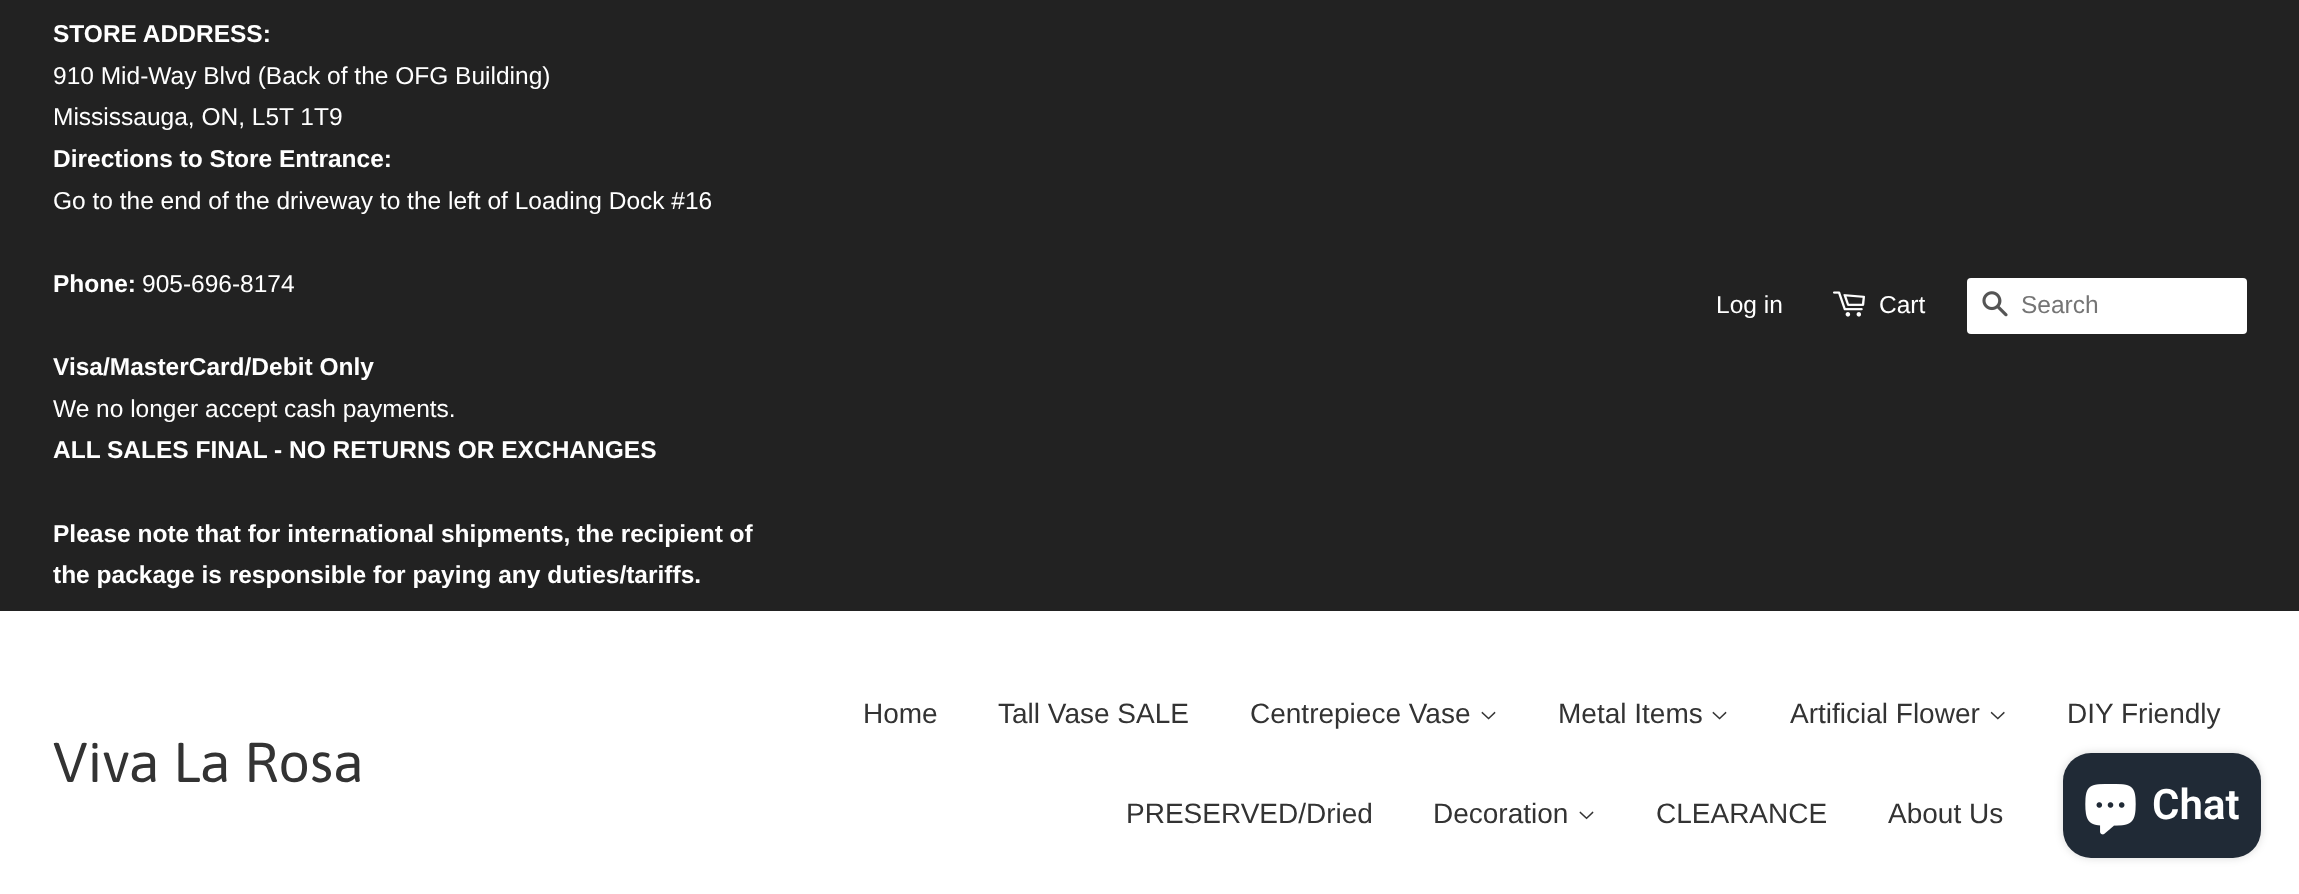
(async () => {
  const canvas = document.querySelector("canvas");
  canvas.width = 2299;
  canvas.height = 894;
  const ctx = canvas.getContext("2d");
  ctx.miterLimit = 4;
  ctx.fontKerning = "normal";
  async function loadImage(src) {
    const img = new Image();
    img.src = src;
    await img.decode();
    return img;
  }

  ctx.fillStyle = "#ffffff";
  ctx.fillRect(0, 0, 2299, 894);
  ctx.fillStyle = "#222222";
  ctx.fillRect(0, 0, 2299, 611);
  ctx.drawImage(await loadImage("img/1.png"), 1833, 291, 32, 26);
  ctx.fillStyle = "#ffffff";
  ctx.beginPath();
  ctx.roundRect(1967, 278, 280, 56, 4);
  ctx.fill();
  ctx.drawImage(await loadImage("img/2.png"), 1982, 291, 26, 26);
  ctx.drawImage(await loadImage("img/3.png"), 1481, 711, 15, 9);
  ctx.drawImage(await loadImage("img/3.png"), 1712, 711, 15, 9);
  ctx.drawImage(await loadImage("img/4.png"), 1990, 711, 15, 9);
  ctx.drawImage(await loadImage("img/5.png"), 1579, 811, 15, 9);
  ctx.fillStyle = "rgba(0, 0, 0, 0.15)";
  ctx.filter = "blur(4.5px)";
  ctx.beginPath();
  ctx.roundRect(2063, 753, 198, 105, 28);
  ctx.fill();
  ctx.filter = "none";
  ctx.fillStyle = "#202a36";
  ctx.beginPath();
  ctx.roundRect(2063, 753, 198, 105, 28);
  ctx.fill();
  ctx.drawImage(await loadImage("img/6.png"), 2085, 784, 51, 51);
  ctx.font = "bold 24.5px Liberation Sans";
  ctx.fillStyle = "#ffffff";
  ctx.fillText("STORE ADDRESS:", 53, 42);
  ctx.font = "24.5px Liberation Sans";
  ctx.fillText("910 Mid-Way Blvd (Back of the OFG Building)", 53, 84);
  ctx.fillText("Mississauga, ON, L5T 1T9", 53, 125);
  ctx.font = "bold 24.5px Liberation Sans";
  ctx.fillText("Directions to Store Entrance:", 53, 167);
  ctx.font = "24.5px Liberation Sans";
  ctx.fillText("Go to the end of the driveway to the left of Loading Dock #16", 53, 209);
  ctx.font = "bold 24.5px Liberation Sans";
  ctx.fillText("Phone:", 53, 292);
  ctx.font = "24.5px Liberation Sans";
  ctx.fillText("905-696-8174", 142, 292);
  ctx.font = "bold 24.5px Liberation Sans";
  ctx.fillText("Visa/MasterCard/Debit Only", 53, 375);
  ctx.font = "24.5px Liberation Sans";
  ctx.fillText("We no longer accept cash payments.", 53, 417);
  ctx.font = "bold 24.5px Liberation Sans";
  for (const [text, x, y] of [
    ["ALL SALES FINAL - NO RETURNS OR EXCHANGES", 53, 458],
    ["Please note that for international shipments, the recipient of", 53, 542],
    ["the package is responsible for paying any duties/tariffs.", 53, 583],
  ]) {
    ctx.fillText(text, x, y);
  }
  ctx.font = "24.5px Liberation Sans";
  ctx.fillText("Log in", 1716, 313);
  ctx.fillText("Cart", 1879, 313);
  ctx.fillStyle = "#757575";
  ctx.fillText("Search", 2021, 313);
  ctx.font = "56px Asap";
  ctx.fillStyle = "#333333";
  ctx.fillText("Viva La Rosa", 53, 782);
  ctx.font = "28px Liberation Sans";
  for (const [text, x, y] of [
    ["Home", 863, 723],
    ["Tall Vase SALE", 998, 723],
    ["Centrepiece Vase", 1250, 723],
    ["Metal Items", 1558, 723],
    ["Artificial Flower", 1790, 723],
    ["DIY Friendly", 2067, 723],
    ["PRESERVED/Dried", 1126, 823],
    ["Decoration", 1433, 823],
    ["CLEARANCE", 1656, 823],
    ["About Us", 1888, 823],
  ]) {
    ctx.fillText(text, x, y);
  }
  ctx.font = "600 42px Roboto";
  ctx.fillStyle = "#ffffff";
  ctx.fillText("Chat", 2152, 819);
})();
